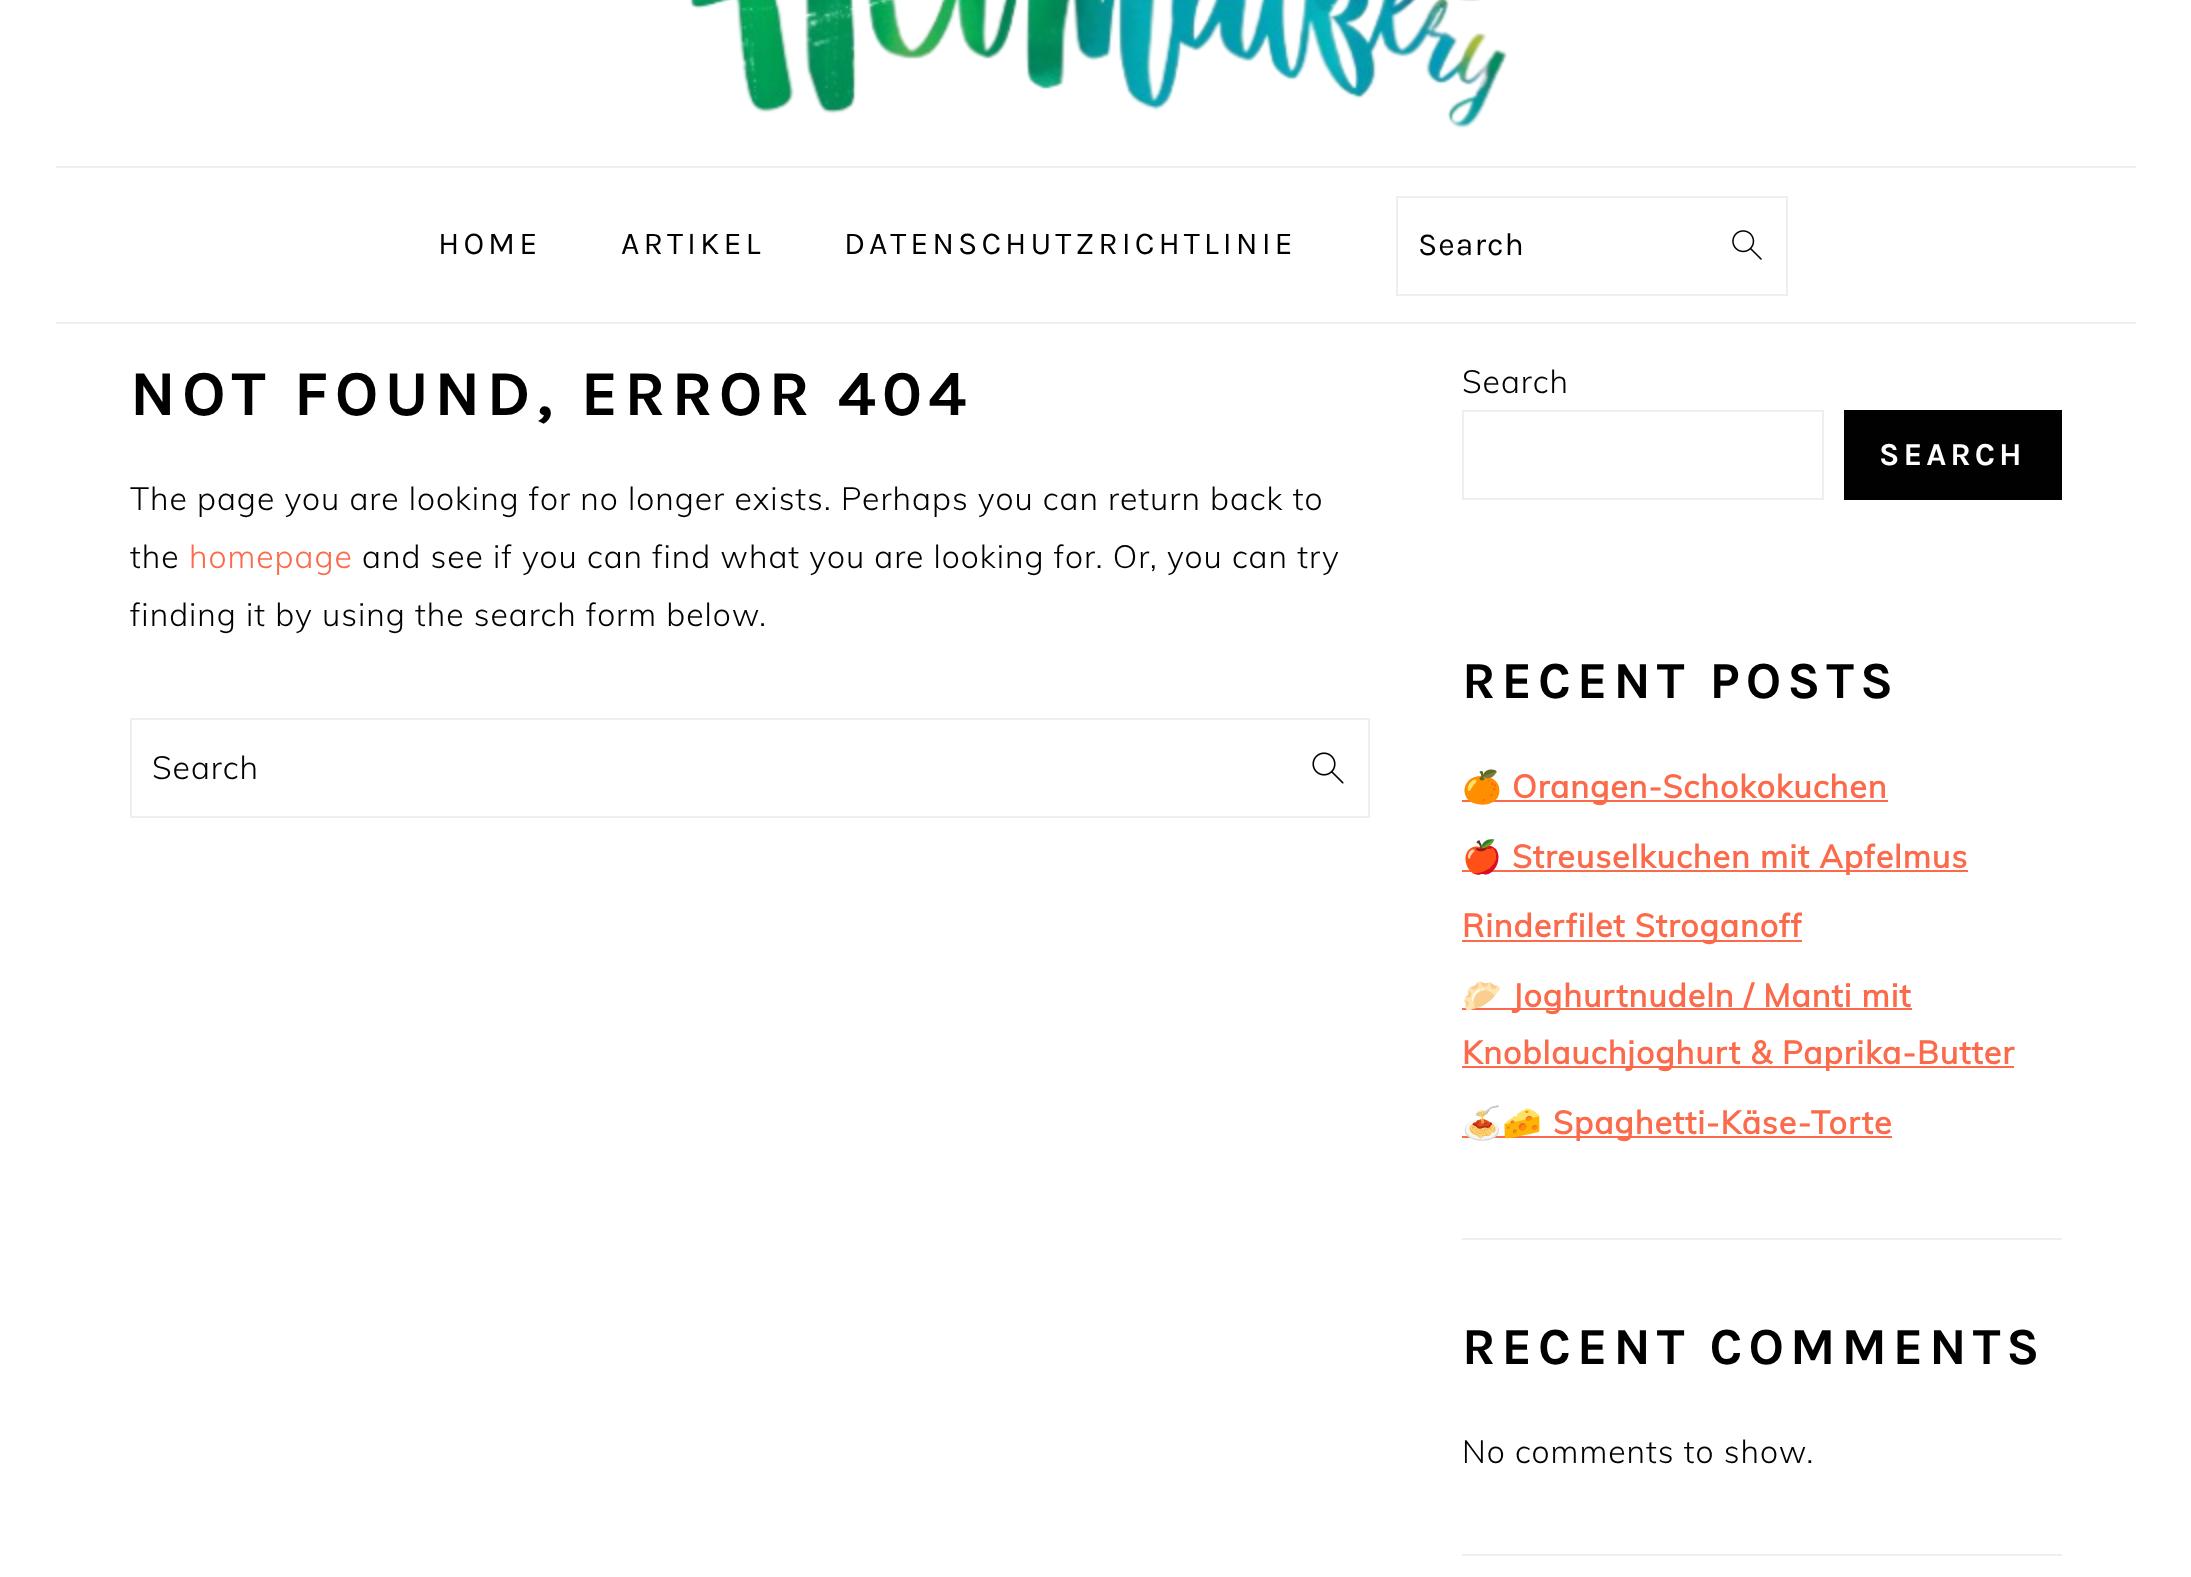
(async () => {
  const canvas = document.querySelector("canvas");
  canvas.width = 2191;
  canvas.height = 1577;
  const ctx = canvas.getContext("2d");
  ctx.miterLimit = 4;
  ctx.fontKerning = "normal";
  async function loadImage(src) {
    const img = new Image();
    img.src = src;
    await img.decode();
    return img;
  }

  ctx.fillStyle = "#ffffff";
  ctx.fillRect(0, 0, 2191, 1577);
  ctx.drawImage(await loadImage("img/1.png"), 689, 0, 818, 129);
  ctx.fillStyle = "#eeeeee";
  ctx.fillRect(56, 166, 2080, 2);
  ctx.fillRect(56, 322, 2080, 2);
  ctx.strokeStyle = "#eeeeee";
  ctx.lineWidth = 2;
  ctx.strokeRect(1397, 197, 390, 98);
  ctx.drawImage(await loadImage("img/2.png"), 1732, 230, 30, 30);
  ctx.strokeRect(131, 719, 1238, 98);
  ctx.drawImage(await loadImage("img/3.png"), 1312, 752, 32, 32);
  ctx.strokeRect(1463, 411, 360, 88);
  for (const [x, y, w, h, color] of [
    [1844, 410, 218, 90, "#010101"],
    [1462, 1238, 600, 2, "#eeeeee"],
    [1462, 800, 426, 2, "#fb6a4a"],
    [1462, 870, 506, 2, "#fb6a4a"],
    [1462, 940, 340, 2, "#fb6a4a"],
    [1462, 1008, 450, 2, "#fb6a4a"],
    [1462, 1066, 552, 2, "#fb6a4a"],
    [1462, 1136, 430, 2, "#fb6a4a"],
    [1462, 1554, 600, 2, "#eeeeee"],
  ]) {
    ctx.fillStyle = color;
    ctx.fillRect(x, y, w, h);
  }
  ctx.letterSpacing = "4px";
  ctx.font = "32px Karla";
  ctx.fillStyle = "#000000";
  for (const [text, x, y] of [
    ["HOME", 438, 254],
    ["ARTIKEL", 621, 254],
    ["DATENSCHUTZRICHTLINIE", 844, 254],
  ]) {
    ctx.fillText(text, x, y);
  }
  ctx.letterSpacing = "1px";
  ctx.fillText("Search", 1418, 255);
  ctx.letterSpacing = "6px";
  ctx.font = "bold 64px Karla";
  ctx.fillText("NOT FOUND, ERROR 404", 130, 415);
  ctx.letterSpacing = "1px";
  ctx.font = "300 32px Muli";
  ctx.fillText("The page you are looking for no longer exists. Perhaps you can return back to", 130, 510);
  ctx.fillText("the", 130, 568);
  ctx.fillStyle = "#fb6a4a";
  ctx.fillText("homepage", 189, 568);
  ctx.fillStyle = "#000000";
  for (const [text, x, y] of [
    ["and see if you can find what you are looking for. Or, you can try", 362, 568],
    ["finding it by using the search form below.", 130, 626],
    ["Search", 152, 779],
    ["Search", 1462, 393],
  ]) {
    ctx.fillText(text, x, y);
  }
  ctx.letterSpacing = "4px";
  ctx.font = "bold 32px Karla";
  ctx.fillStyle = "#ffffff";
  ctx.fillText("SEARCH", 1879, 465);
  ctx.letterSpacing = "6px";
  ctx.font = "bold 52px Karla";
  ctx.fillStyle = "#000000";
  ctx.fillText("RECENT POSTS", 1462, 698);
  ctx.letterSpacing = "1px";
  ctx.font = "bold 32px Noto Color Emoji";
  ctx.fillStyle = "#fb6a4a";
  ctx.fillText("🍊", 1462, 798);
  ctx.font = "bold 32px Muli";
  ctx.fillText("Orangen-Schokokuchen", 1512, 798);
  ctx.font = "bold 32px Noto Color Emoji";
  ctx.fillText("🍎", 1462, 868);
  ctx.font = "bold 32px Muli";
  ctx.fillText("Streuselkuchen mit Apfelmus", 1512, 868);
  ctx.fillText("Rinderfilet Stroganoff", 1462, 937);
  ctx.font = "bold 32px Noto Color Emoji";
  ctx.fillText("🥟", 1462, 1007);
  ctx.font = "bold 32px Muli";
  ctx.fillText("Joghurtnudeln / Manti mit", 1512, 1007);
  ctx.fillText("Knoblauchjoghurt & Paprika-Butter", 1462, 1064);
  ctx.font = "bold 32px Noto Color Emoji";
  ctx.fillText("🍝🧀", 1462, 1134);
  ctx.font = "bold 32px Muli";
  ctx.fillText("Spaghetti-Käse-Torte", 1553, 1134);
  ctx.letterSpacing = "6px";
  ctx.font = "bold 52px Karla";
  ctx.fillStyle = "#000000";
  ctx.fillText("RECENT COMMENTS", 1462, 1364);
  ctx.letterSpacing = "1px";
  ctx.font = "300 32px Muli";
  ctx.fillText("No comments to show.", 1462, 1463);
})();
